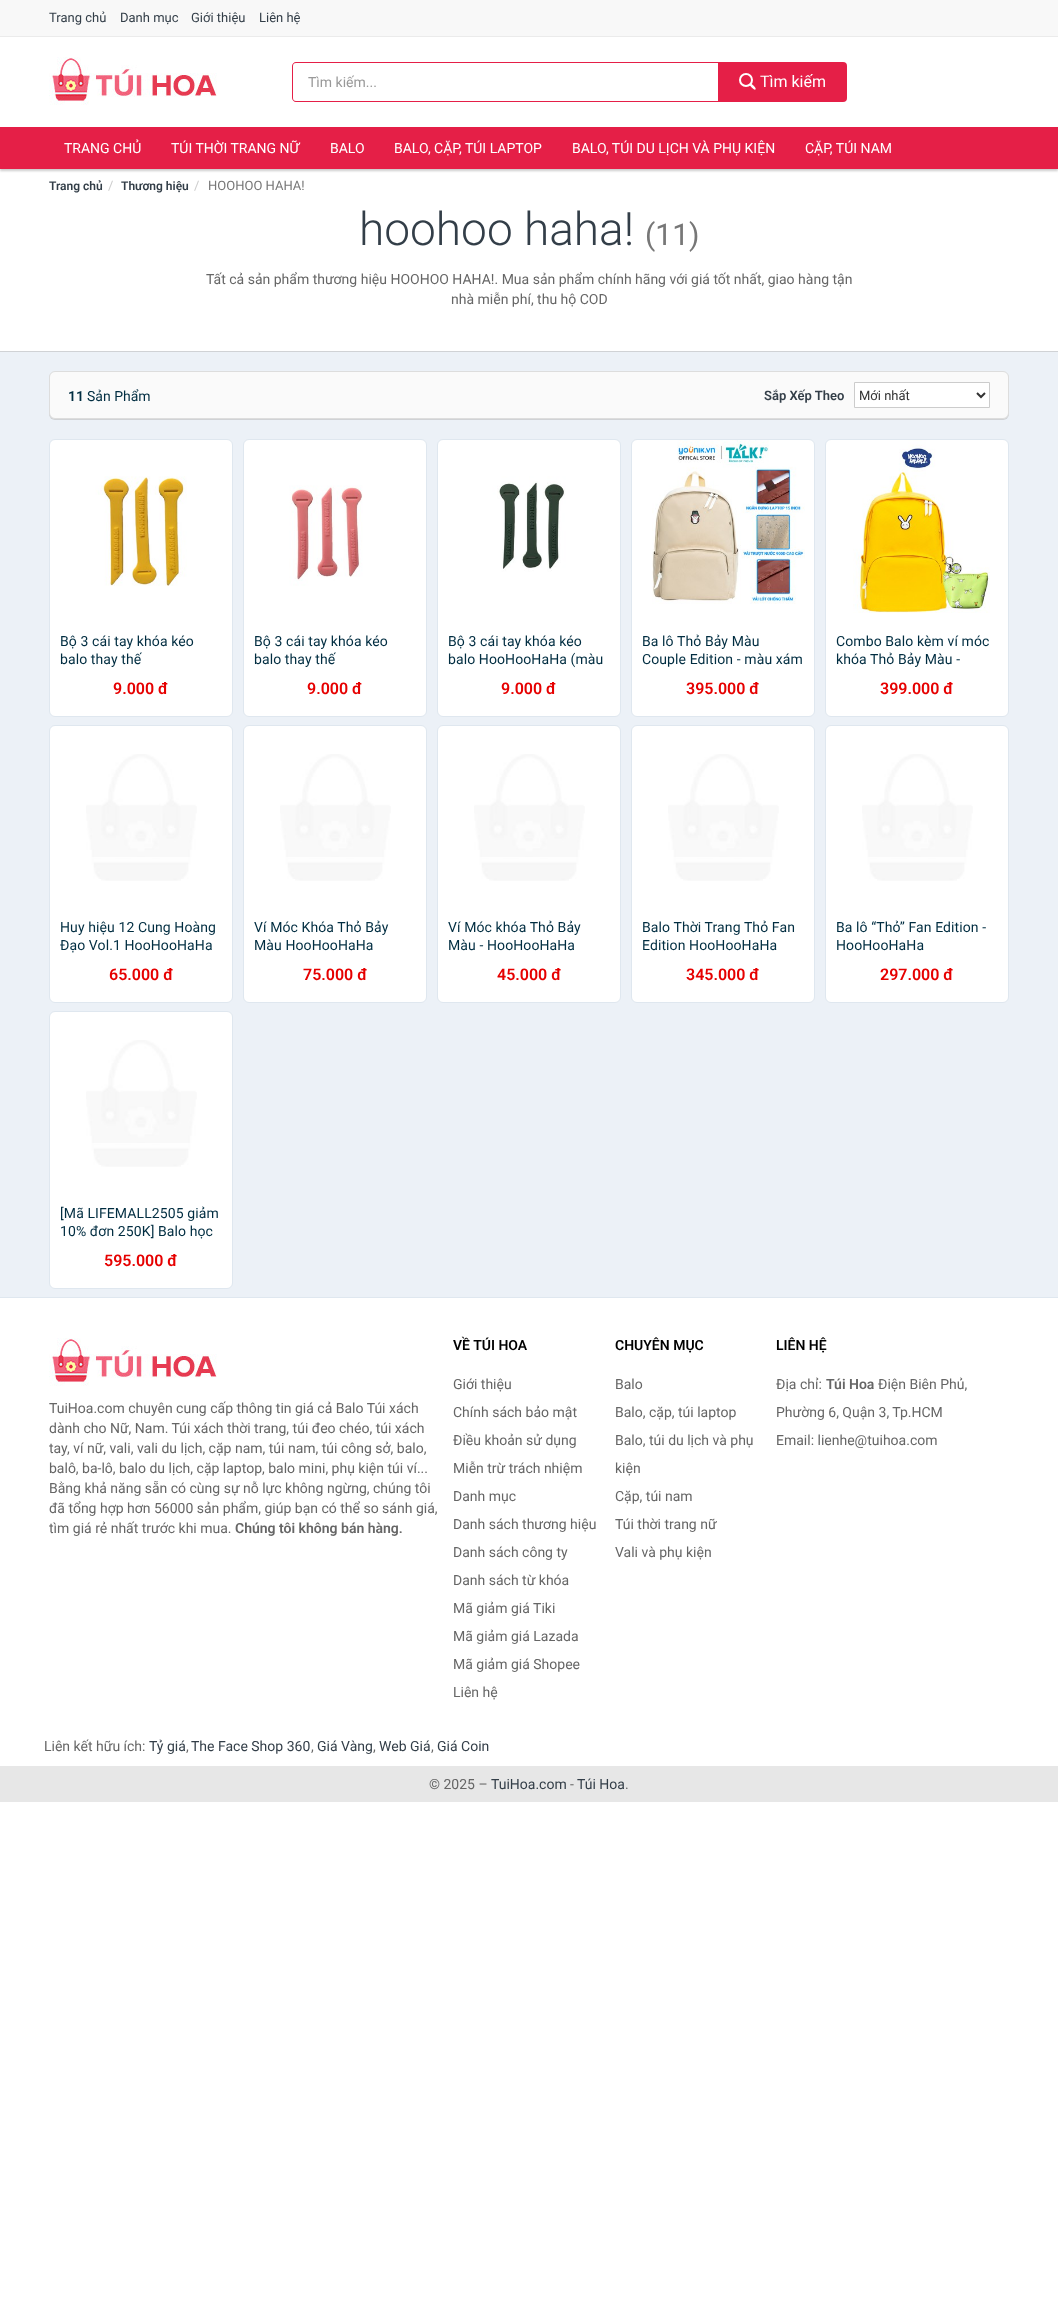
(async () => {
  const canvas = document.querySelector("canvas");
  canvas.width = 1058;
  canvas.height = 2301;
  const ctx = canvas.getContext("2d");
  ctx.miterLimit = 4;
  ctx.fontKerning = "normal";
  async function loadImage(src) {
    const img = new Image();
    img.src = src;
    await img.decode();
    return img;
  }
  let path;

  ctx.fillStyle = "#ffffff";
  ctx.fillRect(0, 0, 1058, 2301);
  ctx.fillStyle = "#f8f8f8";
  ctx.fillRect(0, 0, 1058, 36);
  ctx.fillStyle = "#ebebeb";
  ctx.fillRect(0, 36, 1058, 1);
  ctx.drawImage(await loadImage("img/1.png"), 49, 57, 168, 48);
  ctx.fillStyle = "#e51f47";
  path = new Path2D("M296 62H719V102H296C294 102 292 100 292 98V66C292 64 294 62 296 62ZM296 63H719V101H296C294 101 293 100 293 98V66C293 64 294 63 296 63Z");
  ctx.fill(path, "evenodd");
  ctx.beginPath();
  ctx.roundRect(718, 62, 129, 40, [0, 4, 4, 0]);
  ctx.fill();
  ctx.beginPath();
  ctx.arc(746, 80, 6, 0, Math.PI * 2);
  ctx.strokeStyle = "#ffffff";
  ctx.lineWidth = 2;
  ctx.stroke();
  ctx.fillStyle = "#ffffff";
  path = new Path2D("M750.5 83C751.5 84 757 88 755.5 89.5C754 90.5 750 85.5 749 84.5Z");
  ctx.fill(path);
  ctx.fillStyle = "rgba(0, 0, 0, 0.2)";
  ctx.filter = "blur(1px)";
  ctx.beginPath();
  ctx.rect(0, 129, 1058, 42);
  ctx.fill();
  ctx.filter = "none";
  ctx.fillStyle = "#e51f47";
  ctx.fillRect(0, 127, 1058, 42);
  ctx.fillStyle = "#ecf1f7";
  ctx.fillRect(0, 351, 1058, 946);
  ctx.fillStyle = "rgba(180, 180, 180, 0.5)";
  ctx.filter = "blur(0.5px)";
  ctx.beginPath();
  ctx.rect(0, 205, 1058, 147);
  ctx.fill();
  ctx.filter = "none";
  ctx.fillStyle = "#ffffff";
  ctx.fillRect(0, 204, 1058, 147);
  ctx.fillStyle = "rgba(180, 180, 180, 0.5)";
  ctx.filter = "blur(0.5px)";
  ctx.beginPath();
  ctx.roundRect(49, 372, 960, 48, 6);
  ctx.fill();
  ctx.filter = "none";
  ctx.fillStyle = "#fafafa";
  ctx.beginPath();
  ctx.roundRect(49.5, 371.5, 959, 47, 5.5);
  ctx.fill();
  ctx.strokeStyle = "#dddddd";
  ctx.lineWidth = 1;
  ctx.stroke();
  ctx.fillStyle = "#ffffff";
  ctx.beginPath();
  ctx.rect(854.5, 382.5, 135, 25);
  ctx.fill();
  ctx.strokeStyle = "#cccccc";
  ctx.stroke();
  path = new Path2D("M977 393L981 397L985 393");
  ctx.strokeStyle = "#333333";
  ctx.lineWidth = 2;
  ctx.stroke(path);
  ctx.beginPath();
  ctx.roundRect(49.5, 439.5, 183, 277, 5.5);
  ctx.fill();
  ctx.strokeStyle = "#dfe7ef";
  ctx.lineWidth = 1;
  ctx.stroke();
  ctx.drawImage(await loadImage("img/2.png"), 86, 468, 111, 127);
  ctx.beginPath();
  ctx.roundRect(243.5, 439.5, 183, 277, 5.5);
  ctx.fill();
  ctx.stroke();
  ctx.drawImage(await loadImage("img/3.png"), 280, 468, 111, 127);
  ctx.beginPath();
  ctx.roundRect(437.5, 439.5, 183, 277, 5.5);
  ctx.fill();
  ctx.stroke();
  ctx.drawImage(await loadImage("img/4.png"), 474, 468, 111, 127);
  ctx.beginPath();
  ctx.roundRect(631.5, 439.5, 183, 277, 5.5);
  ctx.fill();
  ctx.stroke();
  ctx.drawImage(await loadImage("img/5.png"), 652, 440, 153, 164);
  ctx.beginPath();
  ctx.roundRect(825.5, 439.5, 183, 277, 5.5);
  ctx.fill();
  ctx.stroke();
  ctx.drawImage(await loadImage("img/6.png"), 853, 440, 137, 173);
  ctx.beginPath();
  ctx.roundRect(49.5, 725.5, 183, 277, 5.5);
  ctx.fill();
  ctx.stroke();
  ctx.drawImage(await loadImage("img/7.png"), 86, 754, 111, 127);
  ctx.beginPath();
  ctx.roundRect(243.5, 725.5, 183, 277, 5.5);
  ctx.fill();
  ctx.stroke();
  ctx.drawImage(await loadImage("img/7.png"), 280, 754, 111, 127);
  ctx.beginPath();
  ctx.roundRect(437.5, 725.5, 183, 277, 5.5);
  ctx.fill();
  ctx.stroke();
  ctx.drawImage(await loadImage("img/8.png"), 474, 754, 111, 127);
  ctx.beginPath();
  ctx.roundRect(631.5, 725.5, 183, 277, 5.5);
  ctx.fill();
  ctx.stroke();
  ctx.drawImage(await loadImage("img/7.png"), 668, 754, 111, 127);
  ctx.beginPath();
  ctx.roundRect(825.5, 725.5, 183, 277, 5.5);
  ctx.fill();
  ctx.stroke();
  ctx.drawImage(await loadImage("img/8.png"), 862, 754, 111, 127);
  ctx.beginPath();
  ctx.roundRect(49.5, 1011.5, 183, 277, 5.5);
  ctx.fill();
  ctx.stroke();
  ctx.drawImage(await loadImage("img/7.png"), 86, 1040, 111, 127);
  ctx.fillStyle = "#dfe7ef";
  ctx.fillRect(0, 1297, 1058, 1);
  ctx.drawImage(await loadImage("img/1.png"), 49, 1338, 168, 48);
  ctx.fillStyle = "#e7e7e7";
  ctx.fillRect(0, 1766, 1058, 36);
  ctx.font = "13px Roboto";
  ctx.fillStyle = "#333e48";
  for (const [text, x, y] of [
    ["Trang chủ", 49, 22],
    ["Danh mục", 120, 22],
    ["Giới thiệu", 191, 22],
    ["Liên hệ", 259, 22],
  ]) {
    ctx.fillText(text, x, y);
  }
  ctx.font = "14px Roboto";
  ctx.fillStyle = "#999999";
  ctx.fillText("Tìm kiếm...", 308, 87);
  ctx.font = "16px Roboto";
  ctx.fillStyle = "#ffffff";
  ctx.fillText("Tìm kiếm", 760, 87);
  ctx.font = "14px Roboto";
  for (const [text, x, y] of [
    ["TRANG CHỦ", 64, 153],
    ["TÚI THỜI TRANG NỮ", 171, 153],
    ["BALO", 330, 153],
    ["BALO, CẶP, TÚI LAPTOP", 394, 153],
    ["BALO, TÚI DU LỊCH VÀ PHỤ KIỆN", 572, 153],
    ["CẶP, TÚI NAM", 805, 153],
  ]) {
    ctx.fillText(text, x, y);
  }
  ctx.font = "600 12px Roboto";
  ctx.fillStyle = "#333e48";
  ctx.fillText("Trang chủ", 49, 190);
  ctx.font = "13px Roboto";
  ctx.fillStyle = "#cccccc";
  ctx.fillText("/", 108, 190);
  ctx.font = "600 12px Roboto";
  ctx.fillStyle = "#333e48";
  ctx.fillText("Thương hiệu", 121, 190);
  ctx.font = "13px Roboto";
  ctx.fillStyle = "#cccccc";
  ctx.fillText("/", 194, 190);
  ctx.fillStyle = "#777777";
  ctx.fillText("HOOHOO HAHA!", 208, 190);
  ctx.font = "300 46px Roboto";
  ctx.fillStyle = "#333e48";
  ctx.fillText("hoohoo haha!", 359, 245);
  ctx.font = "30px Roboto";
  ctx.fillStyle = "#777777";
  ctx.fillText("(11)", 645, 245);
  ctx.font = "14px Roboto";
  ctx.fillStyle = "#666666";
  ctx.fillText("Tất cả sản phẩm thương hiệu HOOHOO HAHA!. Mua sản phẩm chính hãng với giá tốt nhất, giao hàng tận", 206, 284);
  ctx.fillText("nhà miễn phí, thu hộ COD", 451, 304);
  ctx.font = "600 14px Roboto";
  ctx.fillStyle = "#012d41";
  ctx.fillText("11", 68, 401);
  ctx.font = "14px Roboto";
  ctx.fillText("Sản Phẩm", 87, 401);
  ctx.font = "600 13px Roboto";
  ctx.fillStyle = "#333e48";
  ctx.fillText("Sắp Xếp Theo", 764, 400);
  ctx.font = "13px Roboto";
  ctx.fillStyle = "#333333";
  ctx.fillText("Mới nhất", 859, 400);
  ctx.letterSpacing = "0.1px";
  ctx.font = "14px Roboto";
  ctx.fillStyle = "#012d41";
  ctx.fillText("Bộ 3 cái tay khóa kéo", 60, 646);
  ctx.fillText("balo thay thế", 60, 664);
  ctx.letterSpacing = "0px";
  ctx.font = "600 16px Roboto";
  ctx.fillStyle = "#e60000";
  ctx.fillText("9.000 đ", 113, 694);
  ctx.letterSpacing = "0.1px";
  ctx.font = "14px Roboto";
  ctx.fillStyle = "#012d41";
  ctx.fillText("Bộ 3 cái tay khóa kéo", 254, 646);
  ctx.fillText("balo thay thế", 254, 664);
  ctx.letterSpacing = "0px";
  ctx.font = "600 16px Roboto";
  ctx.fillStyle = "#e60000";
  ctx.fillText("9.000 đ", 307, 694);
  ctx.letterSpacing = "0.1px";
  ctx.font = "14px Roboto";
  ctx.fillStyle = "#012d41";
  ctx.fillText("Bộ 3 cái tay khóa kéo", 448, 646);
  ctx.fillText("balo HooHooHaHa (màu", 448, 664);
  ctx.letterSpacing = "0px";
  ctx.font = "600 16px Roboto";
  ctx.fillStyle = "#e60000";
  ctx.fillText("9.000 đ", 501, 694);
  ctx.letterSpacing = "0.1px";
  ctx.font = "14px Roboto";
  ctx.fillStyle = "#012d41";
  ctx.fillText("Ba lô Thỏ Bảy Màu", 642, 646);
  ctx.fillText("Couple Edition - màu xám", 642, 664);
  ctx.letterSpacing = "0px";
  ctx.font = "600 16px Roboto";
  ctx.fillStyle = "#e60000";
  ctx.fillText("395.000 đ", 686, 694);
  ctx.letterSpacing = "0.1px";
  ctx.font = "14px Roboto";
  ctx.fillStyle = "#012d41";
  ctx.fillText("Combo Balo kèm ví móc", 836, 646);
  ctx.fillText("khóa Thỏ Bảy Màu -", 836, 664);
  ctx.letterSpacing = "0px";
  ctx.font = "600 16px Roboto";
  ctx.fillStyle = "#e60000";
  ctx.fillText("399.000 đ", 880, 694);
  ctx.letterSpacing = "0.1px";
  ctx.font = "14px Roboto";
  ctx.fillStyle = "#012d41";
  ctx.fillText("Huy hiệu 12 Cung Hoàng", 60, 932);
  ctx.fillText("Đạo Vol.1 HooHooHaHa", 60, 950);
  ctx.letterSpacing = "0px";
  ctx.font = "600 16px Roboto";
  ctx.fillStyle = "#e60000";
  ctx.fillText("65.000 đ", 109, 980);
  ctx.letterSpacing = "0.1px";
  ctx.font = "14px Roboto";
  ctx.fillStyle = "#012d41";
  ctx.fillText("Ví Móc Khóa Thỏ Bảy", 254, 932);
  ctx.fillText("Màu HooHooHaHa", 254, 950);
  ctx.letterSpacing = "0px";
  ctx.font = "600 16px Roboto";
  ctx.fillStyle = "#e60000";
  ctx.fillText("75.000 đ", 303, 980);
  ctx.letterSpacing = "0.1px";
  ctx.font = "14px Roboto";
  ctx.fillStyle = "#012d41";
  ctx.fillText("Ví Móc khóa Thỏ Bảy", 448, 932);
  ctx.fillText("Màu - HooHooHaHa", 448, 950);
  ctx.letterSpacing = "0px";
  ctx.font = "600 16px Roboto";
  ctx.fillStyle = "#e60000";
  ctx.fillText("45.000 đ", 497, 980);
  ctx.letterSpacing = "0.1px";
  ctx.font = "14px Roboto";
  ctx.fillStyle = "#012d41";
  ctx.fillText("Balo Thời Trang Thỏ Fan", 642, 932);
  ctx.fillText("Edition HooHooHaHa", 642, 950);
  ctx.letterSpacing = "0px";
  ctx.font = "600 16px Roboto";
  ctx.fillStyle = "#e60000";
  ctx.fillText("345.000 đ", 686, 980);
  ctx.letterSpacing = "0.1px";
  ctx.font = "14px Roboto";
  ctx.fillStyle = "#012d41";
  ctx.fillText("Ba lô “Thỏ” Fan Edition -", 836, 932);
  ctx.fillText("HooHooHaHa", 836, 950);
  ctx.letterSpacing = "0px";
  ctx.font = "600 16px Roboto";
  ctx.fillStyle = "#e60000";
  ctx.fillText("297.000 đ", 880, 980);
  ctx.letterSpacing = "0.1px";
  ctx.font = "14px Roboto";
  ctx.fillStyle = "#012d41";
  ctx.fillText("[Mã LIFEMALL2505 giảm", 60, 1218);
  ctx.fillText("10% đơn 250K] Balo học", 60, 1236);
  ctx.letterSpacing = "0px";
  ctx.font = "600 16px Roboto";
  ctx.fillStyle = "#e60000";
  ctx.fillText("595.000 đ", 104, 1266);
  ctx.font = "14px Roboto";
  ctx.fillStyle = "#666666";
  for (const [text, x, y] of [
    ["TuiHoa.com chuyên cung cấp thông tin giá cả Balo Túi xách", 49, 1413],
    ["dành cho Nữ, Nam. Túi xách thời trang, túi đeo chéo, túi xách", 49, 1433],
    ["tay, ví nữ, vali, vali du lịch, cặp nam, túi nam, túi công sở, balo,", 49, 1453],
    ["balô, ba-lô, balo du lịch, cặp laptop, balo mini, phụ kiện túi ví...", 49, 1473],
    ["Bằng khả năng sẵn có cùng sự nỗ lực không ngừng, chúng tôi", 49, 1493],
    ["đã tổng hợp hơn 56000 sản phẩm, giúp bạn có thể so sánh giá,", 49, 1513],
    ["tìm giá rẻ nhất trước khi mua.", 49, 1533],
  ]) {
    ctx.fillText(text, x, y);
  }
  ctx.font = "600 14px Roboto";
  ctx.fillText("Chúng tôi không bán hàng.", 235, 1533);
  ctx.fillStyle = "#000000";
  ctx.fillText("VỀ TÚI HOA", 453, 1350);
  ctx.font = "14px Roboto";
  ctx.fillStyle = "#666666";
  for (const [text, x, y] of [
    ["Giới thiệu", 453, 1389],
    ["Chính sách bảo mật", 453, 1417],
    ["Điều khoản sử dụng", 453, 1445],
    ["Miễn trừ trách nhiệm", 453, 1473],
    ["Danh mục", 453, 1501],
    ["Danh sách thương hiệu", 453, 1529],
    ["Danh sách công ty", 453, 1557],
    ["Danh sách từ khóa", 453, 1585],
    ["Mã giảm giá Tiki", 453, 1613],
    ["Mã giảm giá Lazada", 453, 1641],
    ["Mã giảm giá Shopee", 453, 1669],
    ["Liên hệ", 453, 1697],
  ]) {
    ctx.fillText(text, x, y);
  }
  ctx.font = "600 14px Roboto";
  ctx.fillStyle = "#000000";
  ctx.fillText("CHUYÊN MỤC", 615, 1350);
  ctx.font = "14px Roboto";
  ctx.fillStyle = "#666666";
  for (const [text, x, y] of [
    ["Balo", 615, 1389],
    ["Balo, cặp, túi laptop", 615, 1417],
    ["Balo, túi du lịch và phụ", 615, 1445],
    ["kiện", 615, 1473],
    ["Cặp, túi nam", 615, 1501],
    ["Túi thời trang nữ", 615, 1529],
    ["Vali và phụ kiện", 615, 1557],
  ]) {
    ctx.fillText(text, x, y);
  }
  ctx.font = "600 14px Roboto";
  ctx.fillStyle = "#000000";
  ctx.fillText("LIÊN HỆ", 776, 1350);
  ctx.font = "14px Roboto";
  ctx.fillStyle = "#666666";
  ctx.fillText("Địa chỉ:", 776, 1389);
  ctx.font = "600 14px Roboto";
  ctx.fillText("Túi Hoa", 826, 1389);
  ctx.font = "14px Roboto";
  for (const [text, x, y] of [
    ["Điện Biên Phủ,", 878, 1389],
    ["Phường 6, Quận 3, Tp.HCM", 776, 1417],
    ["Email: lienhe@tuihoa.com", 776, 1445],
    ["Liên kết hữu ích:", 44, 1751],
  ]) {
    ctx.fillText(text, x, y);
  }
  ctx.fillStyle = "#333e48";
  ctx.fillText("Tỷ giá", 149, 1751);
  ctx.fillStyle = "#666666";
  ctx.fillText(",", 186, 1751);
  ctx.fillStyle = "#333e48";
  ctx.fillText("The Face Shop 360", 191, 1751);
  ctx.fillStyle = "#666666";
  ctx.fillText(",", 311, 1751);
  ctx.fillStyle = "#333e48";
  ctx.fillText("Giá Vàng", 317, 1751);
  ctx.fillStyle = "#666666";
  ctx.fillText(",", 373, 1751);
  ctx.fillStyle = "#333e48";
  ctx.fillText("Web Giá", 379, 1751);
  ctx.fillStyle = "#666666";
  ctx.fillText(",", 431, 1751);
  ctx.fillStyle = "#333e48";
  ctx.fillText("Giá Coin", 437, 1751);
  ctx.fillStyle = "#666666";
  ctx.fillText("© 2025 –", 429, 1789);
  ctx.fillStyle = "#333e48";
  ctx.fillText("TuiHoa.com", 491, 1789);
  ctx.fillStyle = "#666666";
  ctx.fillText("-", 570, 1789);
  ctx.fillStyle = "#333e48";
  ctx.fillText("Túi Hoa", 577, 1789);
  ctx.fillStyle = "#666666";
  ctx.fillText(".", 625, 1789);
})();
